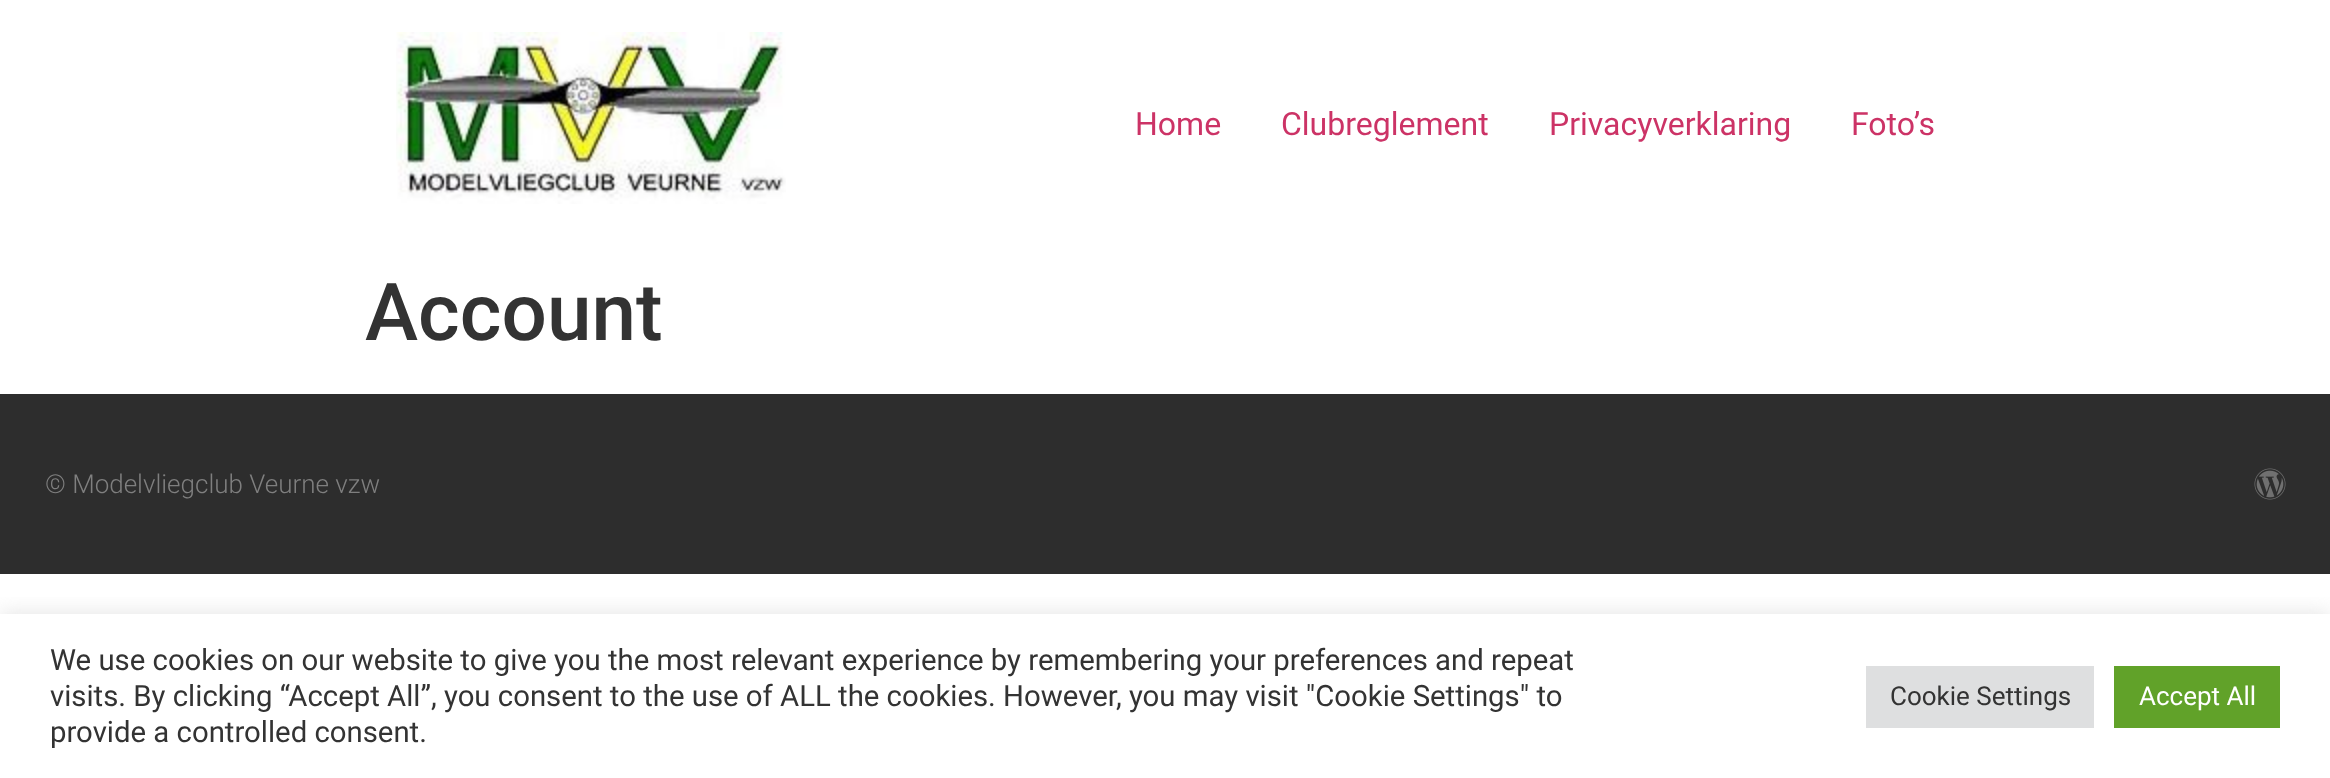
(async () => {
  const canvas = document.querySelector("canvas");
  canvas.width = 2330;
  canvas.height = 778;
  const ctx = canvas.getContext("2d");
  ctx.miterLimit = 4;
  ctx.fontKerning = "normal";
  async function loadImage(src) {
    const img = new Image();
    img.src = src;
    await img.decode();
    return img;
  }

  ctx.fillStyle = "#ffffff";
  ctx.fillRect(0, 0, 2330, 778);
  ctx.drawImage(await loadImage("img/1.png"), 396, 32, 390, 172);
  ctx.fillStyle = "#2d2d2d";
  ctx.fillRect(0, 394, 2330, 180);
  ctx.drawImage(await loadImage("img/2.png"), 2254, 468, 32, 32);
  ctx.save();
  ctx.beginPath();
  ctx.rect(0, 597, 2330, 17);
  ctx.clip();
  ctx.fillStyle = "rgba(172, 171, 171, 0.3)";
  ctx.filter = "blur(10px)";
  ctx.beginPath();
  ctx.rect(0, 612, 2330, 164);
  ctx.fill();
  ctx.filter = "none";
  ctx.restore();
  ctx.fillStyle = "#dedfe0";
  ctx.fillRect(1866, 666, 228, 62);
  ctx.fillStyle = "#61a229";
  ctx.fillRect(2114, 666, 166, 62);
  ctx.font = "32px Roboto";
  ctx.fillStyle = "#cc3366";
  for (const [text, x, y] of [
    ["Home", 1135, 135],
    ["Clubreglement", 1281, 135],
    ["Privacyverklaring", 1549, 135],
    ["Foto’s", 1851, 135],
  ]) {
    ctx.fillText(text, x, y);
  }
  ctx.font = "500 80px Roboto";
  ctx.fillStyle = "#333333";
  ctx.fillText("Account", 365, 340);
  ctx.font = "300 26px Roboto";
  ctx.fillStyle = "#7f7f7f";
  ctx.fillText("© Modelvliegclub Veurne vzw", 45, 493);
  ctx.font = "29.33px Roboto";
  ctx.fillStyle = "#333333";
  for (const [text, x, y] of [
    ["We use cookies on our website to give you the most relevant experience by remembering your preferences and repeat", 50, 670],
    ["visits. By clicking “Accept All”, you consent to the use of ALL the cookies. However, you may visit \"Cookie Settings\" to", 50, 706],
    ["provide a controlled consent.", 50, 742],
  ]) {
    ctx.fillText(text, x, y);
  }
  ctx.font = "26px Roboto";
  ctx.fillText("Cookie Settings", 1890, 705);
  ctx.fillStyle = "#ffffff";
  ctx.fillText("Accept All", 2139, 705);
})();
